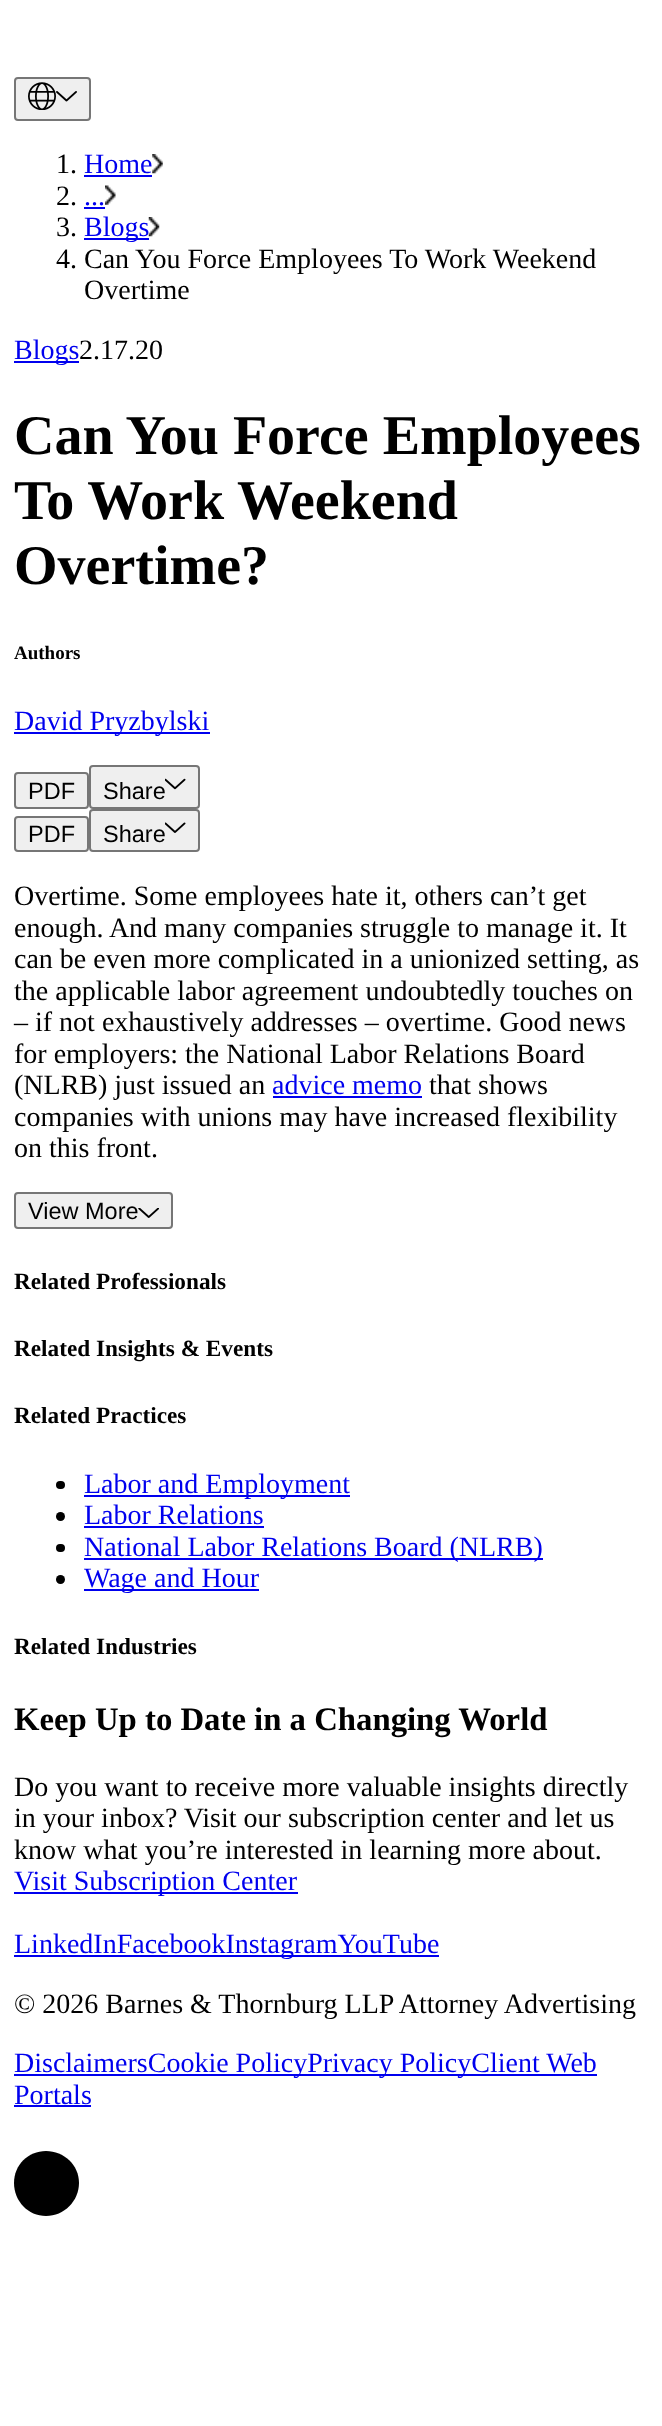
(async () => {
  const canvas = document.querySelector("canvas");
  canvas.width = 662;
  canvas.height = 2426;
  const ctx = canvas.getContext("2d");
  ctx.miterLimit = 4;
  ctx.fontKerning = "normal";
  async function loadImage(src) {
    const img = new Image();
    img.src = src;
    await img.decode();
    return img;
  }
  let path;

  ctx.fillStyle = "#ffffff";
  ctx.fillRect(0, 0, 662, 2426);
  ctx.fillStyle = "#efefef";
  ctx.beginPath();
  ctx.roundRect(15, 78, 75, 42, 3);
  ctx.fill();
  ctx.strokeStyle = "#767676";
  ctx.lineWidth = 2;
  ctx.stroke();
  ctx.drawImage(await loadImage("img/1.png"), 28, 82, 28, 28);
  ctx.drawImage(await loadImage("img/2.png"), 56, 91, 21, 11);
  ctx.fillStyle = "#0000ee";
  ctx.fillRect(84, 175, 68, 2);
  ctx.drawImage(await loadImage("img/3.png"), 152, 154, 11, 20);
  ctx.fillRect(84, 207, 21, 2);
  ctx.drawImage(await loadImage("img/4.png"), 105, 185, 11, 20);
  for (const [x, y, w, h, color] of [
    [84, 238, 65, 2, "#0000ee"],
    [14, 361, 65, 2, "#0000ee"],
    [14, 732, 196, 2, "#0000ee"],
  ]) {
    ctx.fillStyle = color;
    ctx.fillRect(x, y, w, h);
  }
  ctx.fillStyle = "#efefef";
  ctx.beginPath();
  ctx.roundRect(15, 773, 73, 35, 3);
  ctx.fill();
  ctx.stroke();
  ctx.beginPath();
  ctx.roundRect(90, 766, 109, 42, 3);
  ctx.fill();
  ctx.stroke();
  ctx.drawImage(await loadImage("img/6.png"), 165, 778, 21, 12);
  ctx.beginPath();
  ctx.roundRect(15, 817, 73, 34, 3);
  ctx.fill();
  ctx.stroke();
  ctx.beginPath();
  ctx.roundRect(90, 810, 109, 41, 3);
  ctx.fill();
  ctx.stroke();
  ctx.drawImage(await loadImage("img/7.png"), 165, 822, 21, 11);
  ctx.fillStyle = "#0000ee";
  ctx.fillRect(273, 1096, 149, 2);
  ctx.fillStyle = "#efefef";
  ctx.beginPath();
  ctx.roundRect(15, 1193, 157, 35, 3);
  ctx.fill();
  ctx.stroke();
  ctx.drawImage(await loadImage("img/8.png"), 138, 1208, 21, 10);
  ctx.fillStyle = "#000000";
  ctx.beginPath();
  ctx.roundRect(56, 1481, 9, 8, 4);
  ctx.fill();
  ctx.fillStyle = "#0000ee";
  ctx.fillRect(84, 1495, 266, 2);
  ctx.fillStyle = "#000000";
  ctx.beginPath();
  ctx.arc(60.5, 1516.5, 4.5, 0, Math.PI * 2);
  ctx.fill();
  ctx.fillStyle = "#0000ee";
  ctx.fillRect(84, 1526, 180, 2);
  ctx.fillStyle = "#000000";
  ctx.beginPath();
  ctx.roundRect(56, 1544, 9, 8, 4);
  ctx.fill();
  ctx.fillStyle = "#0000ee";
  ctx.fillRect(84, 1558, 459, 2);
  ctx.fillStyle = "#000000";
  ctx.beginPath();
  ctx.arc(60.5, 1579.5, 4.5, 0, Math.PI * 2);
  ctx.fill();
  for (const [x, y, w, h, color] of [
    [84, 1589, 175, 2, "#0000ee"],
    [14, 1892, 284, 2, "#0000ee"],
    [14, 1955, 425, 2, "#0000ee"],
    [14, 2074, 457, 2, "#0000ee"],
    [471, 2074, 126, 2, "#0000ee"],
    [14, 2105, 77, 2, "#0000ee"],
  ]) {
    ctx.fillStyle = color;
    ctx.fillRect(x, y, w, h);
  }
  ctx.fillStyle = "#000000";
  path = new Path2D("M14 2183C14 2165 28 2151 46 2151C64 2151 79 2165 79 2183C79 2201 64 2216 46 2216C28 2216 14 2201 14 2183Z");
  ctx.fill(path);
  ctx.font = "28px Liberation Serif";
  ctx.fillText("1.", 56, 173);
  ctx.fillStyle = "#0000ee";
  ctx.fillText("Home", 84, 173);
  ctx.fillStyle = "#000000";
  ctx.fillText("2.", 56, 205);
  ctx.fillStyle = "#0000ee";
  ctx.fillText("...", 84, 205);
  ctx.fillStyle = "#000000";
  ctx.fillText("3.", 56, 236);
  ctx.fillStyle = "#0000ee";
  ctx.fillText("Blogs", 84, 236);
  ctx.drawImage(await loadImage("img/5.png"), 148, 217, 12, 20);
  ctx.fillStyle = "#000000";
  ctx.fillText("4. Can You Force Employees To Work Weekend", 56, 268);
  ctx.fillText("Overtime", 84, 299);
  ctx.fillStyle = "#0000ee";
  ctx.fillText("Blogs", 14, 359);
  ctx.fillStyle = "#000000";
  ctx.fillText("2.17.20", 79, 359);
  ctx.font = "bold 56px Liberation Serif";
  for (const [text, x, y] of [
    ["Can You Force Employees", 14, 454],
    ["To Work Weekend", 14, 519],
    ["Overtime?", 14, 584],
  ]) {
    ctx.fillText(text, x, y);
  }
  ctx.font = "bold 19px Liberation Serif";
  ctx.fillText("Authors", 14, 659);
  ctx.font = "28px Liberation Serif";
  ctx.fillStyle = "#0000ee";
  ctx.fillText("David Pryzbylski", 14, 730);
  ctx.font = "23.5px Liberation Sans";
  ctx.fillStyle = "#000000";
  for (const [text, x, y] of [
    ["PDF", 28, 799],
    ["Share", 103, 799],
    ["PDF", 28, 842],
    ["Share", 103, 842],
  ]) {
    ctx.fillText(text, x, y);
  }
  ctx.font = "28px Liberation Serif";
  for (const [text, x, y] of [
    ["Overtime. Some employees hate it, others can’t get", 14, 905],
    ["enough. And many companies struggle to manage it. It", 14, 937],
    ["can be even more complicated in a unionized setting, as", 14, 968],
    ["the applicable labor agreement undoubtedly touches on", 14, 1000],
    ["– if not exhaustively addresses – overtime. Good news", 14, 1031],
    ["for employers: the National Labor Relations Board", 14, 1063],
    ["(NLRB) just issued an", 14, 1094],
  ]) {
    ctx.fillText(text, x, y);
  }
  ctx.fillStyle = "#0000ee";
  ctx.fillText("advice memo", 272, 1094);
  ctx.fillStyle = "#000000";
  for (const [text, x, y] of [
    ["that shows", 429, 1094],
    ["companies with unions may have increased flexibility", 14, 1126],
    ["on this front.", 14, 1157],
  ]) {
    ctx.fillText(text, x, y);
  }
  ctx.font = "23.5px Liberation Sans";
  ctx.fillText("View More", 28, 1219);
  ctx.font = "bold 23.25px Liberation Serif";
  for (const [text, x, y] of [
    ["Related Professionals", 14, 1289],
    ["Related Insights & Events", 14, 1356],
    ["Related Practices", 14, 1423],
  ]) {
    ctx.fillText(text, x, y);
  }
  ctx.font = "28px Liberation Serif";
  ctx.fillStyle = "#0000ee";
  for (const [text, x, y] of [
    ["Labor and Employment", 84, 1493],
    ["Labor Relations", 84, 1524],
    ["National Labor Relations Board (NLRB)", 84, 1556],
    ["Wage and Hour", 84, 1587],
  ]) {
    ctx.fillText(text, x, y);
  }
  ctx.font = "bold 23.25px Liberation Serif";
  ctx.fillStyle = "#000000";
  ctx.fillText("Related Industries", 14, 1654);
  ctx.font = "bold 32.75px Liberation Serif";
  ctx.fillText("Keep Up to Date in a Changing World", 14, 1730);
  ctx.font = "28px Liberation Serif";
  for (const [text, x, y] of [
    ["Do you want to receive more valuable insights directly", 14, 1796],
    ["in your inbox? Visit our subscription center and let us", 14, 1827],
    ["know what you’re interested in learning more about.", 14, 1859],
  ]) {
    ctx.fillText(text, x, y);
  }
  ctx.fillStyle = "#0000ee";
  ctx.fillText("Visit Subscription Center", 14, 1890);
  ctx.fillText("LinkedInFacebookInstagramYouTube", 14, 1953);
  ctx.fillStyle = "#000000";
  ctx.fillText("© 2026 Barnes & Thornburg LLP Attorney Advertising", 14, 2013);
  ctx.fillStyle = "#0000ee";
  ctx.fillText("DisclaimersCookie PolicyPrivacy PolicyClient Web", 14, 2072);
  ctx.fillText("Portals", 14, 2104);
})();
